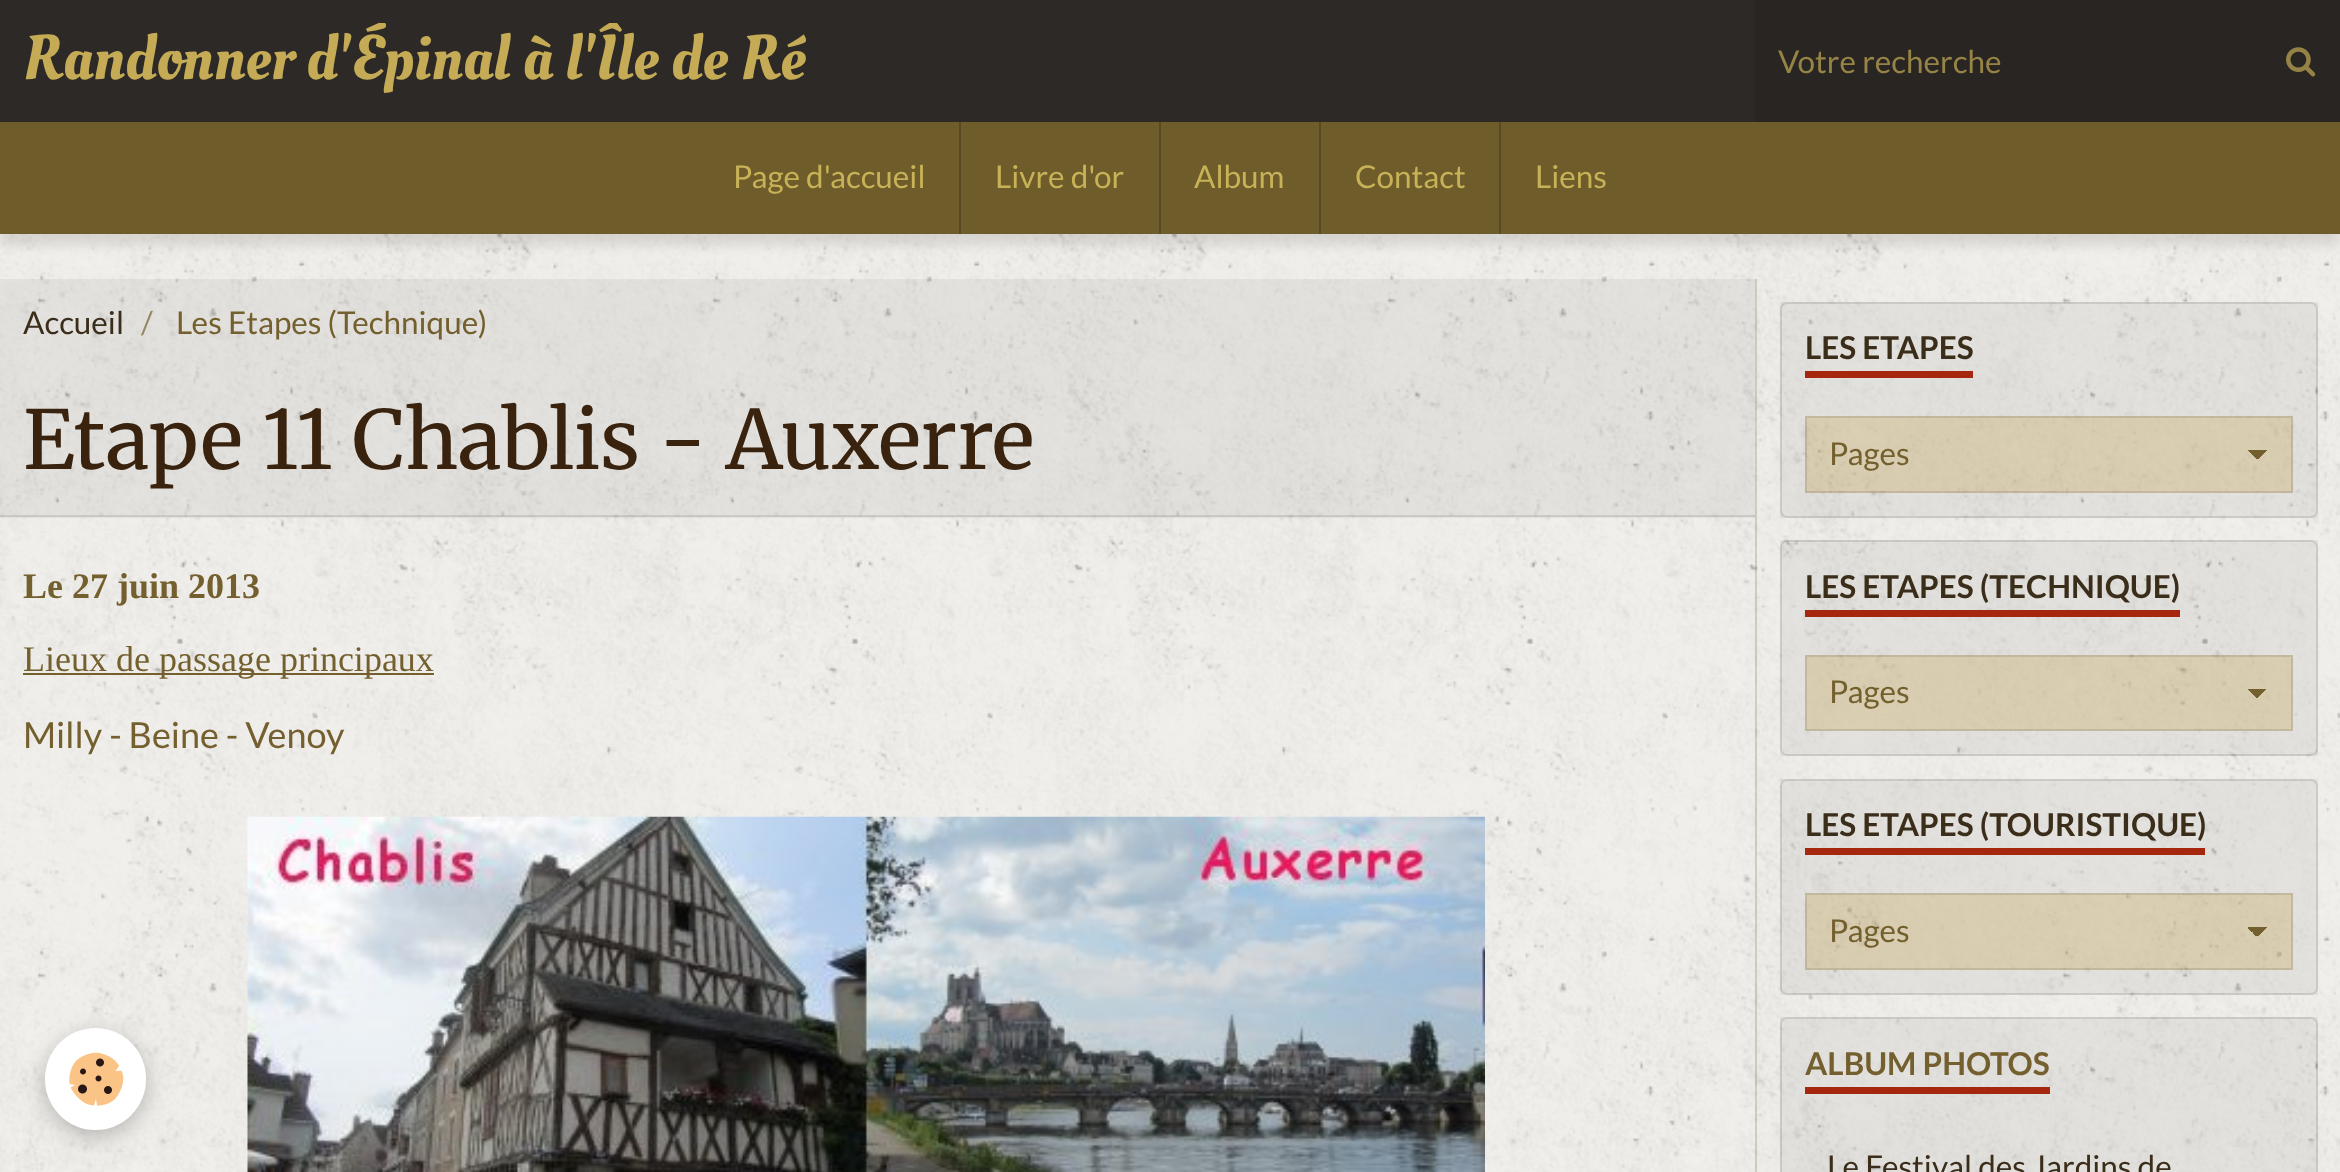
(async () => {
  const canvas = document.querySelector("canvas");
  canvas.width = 2340;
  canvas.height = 1172;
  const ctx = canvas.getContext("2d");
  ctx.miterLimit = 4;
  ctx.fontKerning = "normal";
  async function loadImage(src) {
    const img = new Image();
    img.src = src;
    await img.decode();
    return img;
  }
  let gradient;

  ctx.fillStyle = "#f5f3ef";
  ctx.fillRect(0, 0, 2340, 1172);
  ctx.drawImage(await loadImage("img/1.png"), 0, 234, 2340, 938);
  ctx.fillStyle = "rgba(0, 0, 0, 0.1)";
  ctx.filter = "blur(5.5px)";
  ctx.beginPath();
  ctx.rect(0, 133, 2340, 112);
  ctx.fill();
  ctx.filter = "none";
  ctx.fillStyle = "#2d2926";
  ctx.fillRect(0, 0, 1755, 122);
  ctx.fillStyle = "#292522";
  ctx.fillRect(1755, 0, 585, 122);
  ctx.drawImage(await loadImage("img/2.png"), 2286, 47, 30, 30);
  for (const [x, y, w, h, color] of [
    [0, 122, 2340, 112, "#6e5c2a"],
    [959, 122, 2, 112, "#584a22"],
    [1159, 122, 2, 112, "#584a22"],
    [1319, 122, 2, 112, "#584a22"],
    [1499, 122, 2, 112, "#584a22"],
    [0, 279, 1755, 90, "rgba(0, 0, 0, 0.05)"],
    [0, 369, 1755, 149, "rgba(0, 0, 0, 0.05)"],
    [0, 515, 1755, 2, "rgba(0, 0, 0, 0.1)"],
    [23, 673, 411, 2, "#74602e"],
  ]) {
    ctx.fillStyle = color;
    ctx.fillRect(x, y, w, h);
  }
  ctx.drawImage(await loadImage("img/3.png"), 247, 816, 1238, 356);
  ctx.fillStyle = "rgba(90, 71, 28, 0.2)";
  ctx.fillRect(1755, 279, 2, 893);
  ctx.fillStyle = "rgba(0, 0, 0, 0.05)";
  ctx.fillRect(1780, 302, 538, 216);
  ctx.beginPath();
  ctx.roundRect(1781, 303, 536, 214, 6);
  ctx.strokeStyle = "rgba(0, 0, 0, 0.1)";
  ctx.lineWidth = 2;
  ctx.stroke();
  ctx.fillStyle = "#a7270e";
  ctx.fillRect(1805, 371, 168, 7);
  ctx.fillStyle = "rgba(197, 163, 76, 0.3)";
  ctx.fillRect(1805, 416, 488, 77);
  gradient = ctx.createLinearGradient(2257, 449, 2268, 460);
  gradient.addColorStop(0.5, "#74602e");
  gradient.addColorStop(0.5, "rgba(116, 96, 46, 0)");
  ctx.fillStyle = gradient;
  ctx.fillRect(2257, 450, 10, 9);
  gradient = ctx.createLinearGradient(2246, 460, 2257, 449);
  gradient.addColorStop(0.5, "rgba(116, 96, 46, 0)");
  gradient.addColorStop(0.5, "#74602e");
  ctx.fillStyle = gradient;
  ctx.fillRect(2248, 450, 9, 9);
  ctx.strokeRect(1806, 417, 486, 75);
  ctx.fillStyle = "rgba(0, 0, 0, 0.05)";
  ctx.fillRect(1780, 540, 538, 216);
  ctx.beginPath();
  ctx.roundRect(1781, 541, 536, 214, 6);
  ctx.stroke();
  ctx.fillStyle = "#a7270e";
  ctx.fillRect(1805, 610, 375, 7);
  ctx.fillStyle = "rgba(197, 163, 76, 0.3)";
  ctx.fillRect(1805, 655, 488, 76);
  gradient = ctx.createLinearGradient(2257, 687, 2268, 699);
  gradient.addColorStop(0.5, "#74602e");
  gradient.addColorStop(0.5, "rgba(116, 96, 46, 0)");
  ctx.fillStyle = gradient;
  ctx.fillRect(2257, 689, 9, 9);
  gradient = ctx.createLinearGradient(2246, 699, 2257, 687);
  gradient.addColorStop(0.5, "rgba(116, 96, 46, 0)");
  gradient.addColorStop(0.5, "#74602e");
  ctx.fillStyle = gradient;
  ctx.fillRect(2248, 689, 9, 9);
  ctx.strokeRect(1806, 656, 486, 74);
  ctx.fillStyle = "rgba(0, 0, 0, 0.05)";
  ctx.fillRect(1780, 779, 538, 216);
  ctx.beginPath();
  ctx.roundRect(1781, 780, 536, 214, 6);
  ctx.stroke();
  ctx.fillStyle = "#a7270e";
  ctx.fillRect(1805, 848, 400, 7);
  ctx.fillStyle = "rgba(197, 163, 76, 0.3)";
  ctx.fillRect(1805, 893, 488, 77);
  gradient = ctx.createLinearGradient(2257, 926, 2268, 937);
  gradient.addColorStop(0.5, "#74602e");
  gradient.addColorStop(0.5, "rgba(116, 96, 46, 0)");
  ctx.fillStyle = gradient;
  ctx.fillRect(2257, 927, 10, 9);
  gradient = ctx.createLinearGradient(2246, 937, 2257, 926);
  gradient.addColorStop(0.5, "rgba(116, 96, 46, 0)");
  gradient.addColorStop(0.5, "#74602e");
  ctx.fillStyle = gradient;
  ctx.fillRect(2248, 927, 9, 9);
  ctx.strokeRect(1806, 894, 486, 75);
  ctx.fillStyle = "rgba(0, 0, 0, 0.05)";
  ctx.fillRect(1780, 1017, 538, 155);
  ctx.beginPath();
  ctx.roundRect(1781, 1018, 536, 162, 6);
  ctx.stroke();
  ctx.fillStyle = "#a7270e";
  ctx.fillRect(1805, 1087, 245, 7);
  ctx.fillStyle = "rgba(0, 0, 0, 0.24)";
  ctx.filter = "blur(11px)";
  ctx.beginPath();
  ctx.roundRect(45, 1035, 101, 101, 50.5);
  ctx.fill();
  ctx.filter = "none";
  ctx.fillStyle = "#ffffff";
  ctx.beginPath();
  ctx.roundRect(45, 1028, 101, 102, 50.5);
  ctx.fill();
  ctx.drawImage(await loadImage("img/4.png"), 69, 1052, 55, 54);
  ctx.save();
  ctx.beginPath();
  ctx.rect(23, 23, 783, 76);
  ctx.clip();
  ctx.font = "63px Oleo Script";
  ctx.fillStyle = "#c5ab56";
  ctx.fillText("Randonner d'Épinal à l'Île de Ré", 23, 79);
  ctx.restore();
  ctx.font = "31.5px Lato";
  ctx.fillStyle = "#968346";
  ctx.fillText("Votre recherche", 1778, 73);
  ctx.fillStyle = "#c7b257";
  for (const [text, x, y] of [
    ["Page d'accueil", 733, 188],
    ["Livre d'or", 995, 188],
    ["Album", 1194, 188],
    ["Contact", 1355, 188],
    ["Liens", 1535, 188],
  ]) {
    ctx.fillText(text, x, y);
  }
  ctx.fillStyle = "#3a2d1a";
  ctx.fillText("Accueil", 23, 334);
  ctx.fillStyle = "#958762";
  ctx.fillText("/", 141, 334);
  ctx.fillStyle = "#74602e";
  ctx.fillText("Les Etapes (Technique)", 176, 334);
  ctx.font = "81px Merriweather";
  ctx.fillStyle = "#39230e";
  ctx.fillText("Etape 11 Chablis - Auxerre", 23, 469);
  ctx.font = "bold 36px Liberation Serif";
  ctx.fillStyle = "#74602e";
  ctx.fillText("Le 27 juin 2013", 23, 598);
  ctx.font = "36px Liberation Serif";
  ctx.fillText("Lieux de passage principaux", 23, 671);
  ctx.font = "36px Lato";
  ctx.fillText("Milly - Beine - Venoy", 23, 748);
  ctx.font = "bold 31.5px Lato";
  ctx.fillStyle = "#3a2d1a";
  ctx.fillText("LES ETAPES", 1805, 359);
  ctx.font = "31.5px Lato";
  ctx.fillStyle = "#74602e";
  ctx.fillText("Pages", 1829, 465);
  ctx.font = "bold 31.5px Lato";
  ctx.fillStyle = "#3a2d1a";
  ctx.fillText("LES ETAPES (TECHNIQUE)", 1805, 598);
  ctx.font = "31.5px Lato";
  ctx.fillStyle = "#74602e";
  ctx.fillText("Pages", 1829, 703);
  ctx.font = "bold 31.5px Lato";
  ctx.fillStyle = "#3a2d1a";
  ctx.fillText("LES ETAPES (TOURISTIQUE)", 1805, 836);
  ctx.font = "31.5px Lato";
  ctx.fillStyle = "#74602e";
  ctx.fillText("Pages", 1829, 942);
  ctx.font = "bold 31.5px Lato";
  ctx.fillText("ALBUM PHOTOS", 1805, 1075);
  ctx.font = "31.5px Lato";
  ctx.fillStyle = "#3a2d1a";
  ctx.fillText("Le Festival des Jardins de", 1827, 1178);
})();
